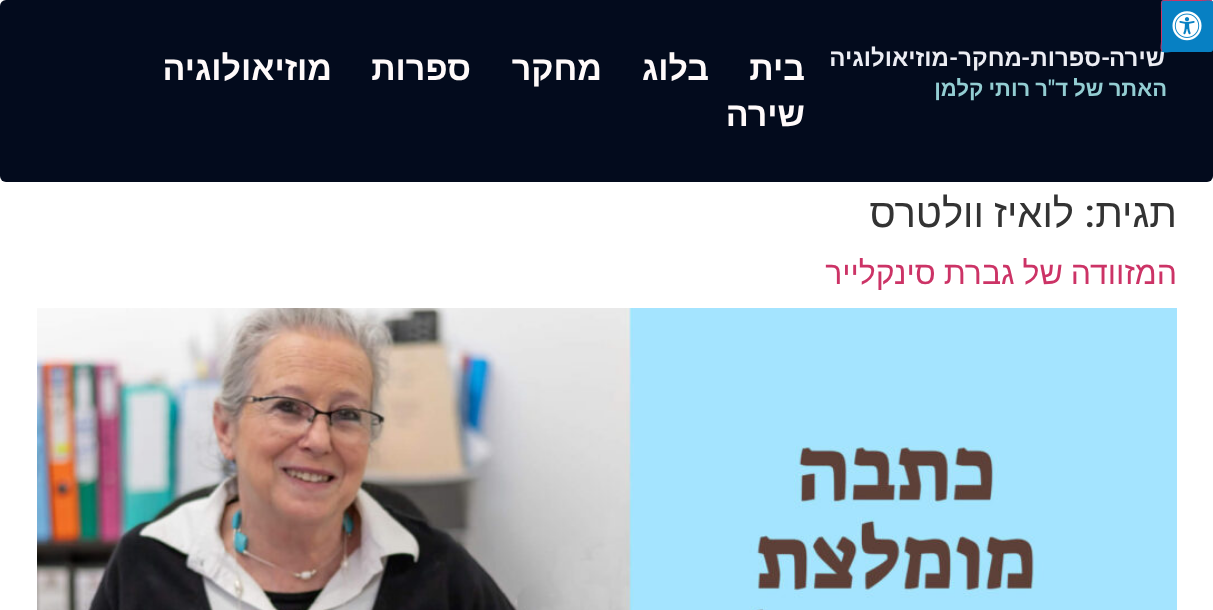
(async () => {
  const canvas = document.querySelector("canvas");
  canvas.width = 1213;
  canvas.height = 610;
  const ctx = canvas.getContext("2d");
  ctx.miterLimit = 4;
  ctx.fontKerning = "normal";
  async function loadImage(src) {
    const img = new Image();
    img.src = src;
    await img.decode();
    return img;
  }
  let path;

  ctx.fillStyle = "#ffffff";
  ctx.fillRect(0, 0, 1213, 610);
  ctx.fillStyle = "#030b1d";
  ctx.beginPath();
  ctx.roundRect(0, 0, 1213, 182, 6);
  ctx.fill();
  ctx.drawImage(await loadImage("img/2.png"), 37, 308, 1140, 302);
  ctx.direction = "rtl";
  ctx.font = "bold 24px Liberation Sans";
  ctx.fillStyle = "#ecedf3";
  ctx.fillText("שירה", 1165, 66);
  ctx.fillStyle = "#0780c3";
  ctx.beginPath();
  ctx.roundRect(1161, 0, 52, 52, 3);
  ctx.fill();
  path = new Path2D("M1212 1C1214 3.5 1212.5 7.5 1212.5 10.5V41.5C1212.5 53 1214 51.5 1202.5 51.5H1171.5C1168.5 51.5 1164.5 53 1162 51");
  ctx.strokeStyle = "#0780c3";
  ctx.stroke(path);
  path = new Path2D("M1162 51C1160 48.5 1161.5 44.5 1161.5 41.5V10.5C1161.5-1 1160 .5 1171.5 .5H1202.5C1205.5 .5 1209.5-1 1212 1");
  ctx.strokeStyle = "#cc3366";
  ctx.stroke(path);
  ctx.drawImage(await loadImage("img/1.png"), 1172, 11, 30, 30);
  ctx.font = "600 24px Roboto";
  ctx.fillStyle = "#ecedf3";
  ctx.fillText("-", 1110, 66);
  ctx.font = "bold 24px Liberation Sans";
  ctx.fillText("ספרות", 1101, 66);
  ctx.font = "600 24px Roboto";
  ctx.fillText("-", 1030, 66);
  ctx.font = "bold 24px Liberation Sans";
  ctx.fillText("מחקר", 1022, 66);
  ctx.font = "600 24px Roboto";
  ctx.fillText("-", 958, 66);
  ctx.font = "bold 24px Liberation Sans";
  ctx.fillText("מוזיאולוגיה", 949, 66);
  ctx.wordSpacing = "-1px";
  ctx.font = "bold 22px Liberation Sans";
  ctx.fillStyle = "#93cdd2";
  ctx.fillText("האתר של ד", 1167, 96);
  ctx.wordSpacing = "0px";
  ctx.font = "600 22px Roboto";
  ctx.fillText("\"", 1055, 96);
  ctx.wordSpacing = "-1px";
  ctx.font = "bold 22px Liberation Sans";
  ctx.fillText("ר רותי קלמן", 1048, 96);
  ctx.wordSpacing = "0px";
  ctx.font = "bold 34px Liberation Sans";
  ctx.fillStyle = "#fffafa";
  for (const [text, x, y] of [
    ["בית", 805, 80],
    ["בלוג", 709, 80],
    ["מחקר", 602, 80],
    ["ספרות", 471, 80],
    ["מוזיאולוגיה", 332, 80],
    ["שירה", 805, 126],
  ]) {
    ctx.fillText(text, x, y);
  }
  ctx.font = "40px Liberation Sans";
  ctx.fillStyle = "#333333";
  ctx.fillText("תגית", 1177, 227);
  ctx.font = "500 40px Roboto";
  ctx.fillText(":", 1095, 227);
  ctx.wordSpacing = "-1px";
  ctx.font = "40px Liberation Sans";
  ctx.fillText("לואיז וולטרס", 1074, 227);
  ctx.font = "32px Liberation Sans";
  ctx.fillStyle = "#cc3366";
  ctx.fillText("המזוודה של גברת סינקלייר", 1177, 284);
})();
